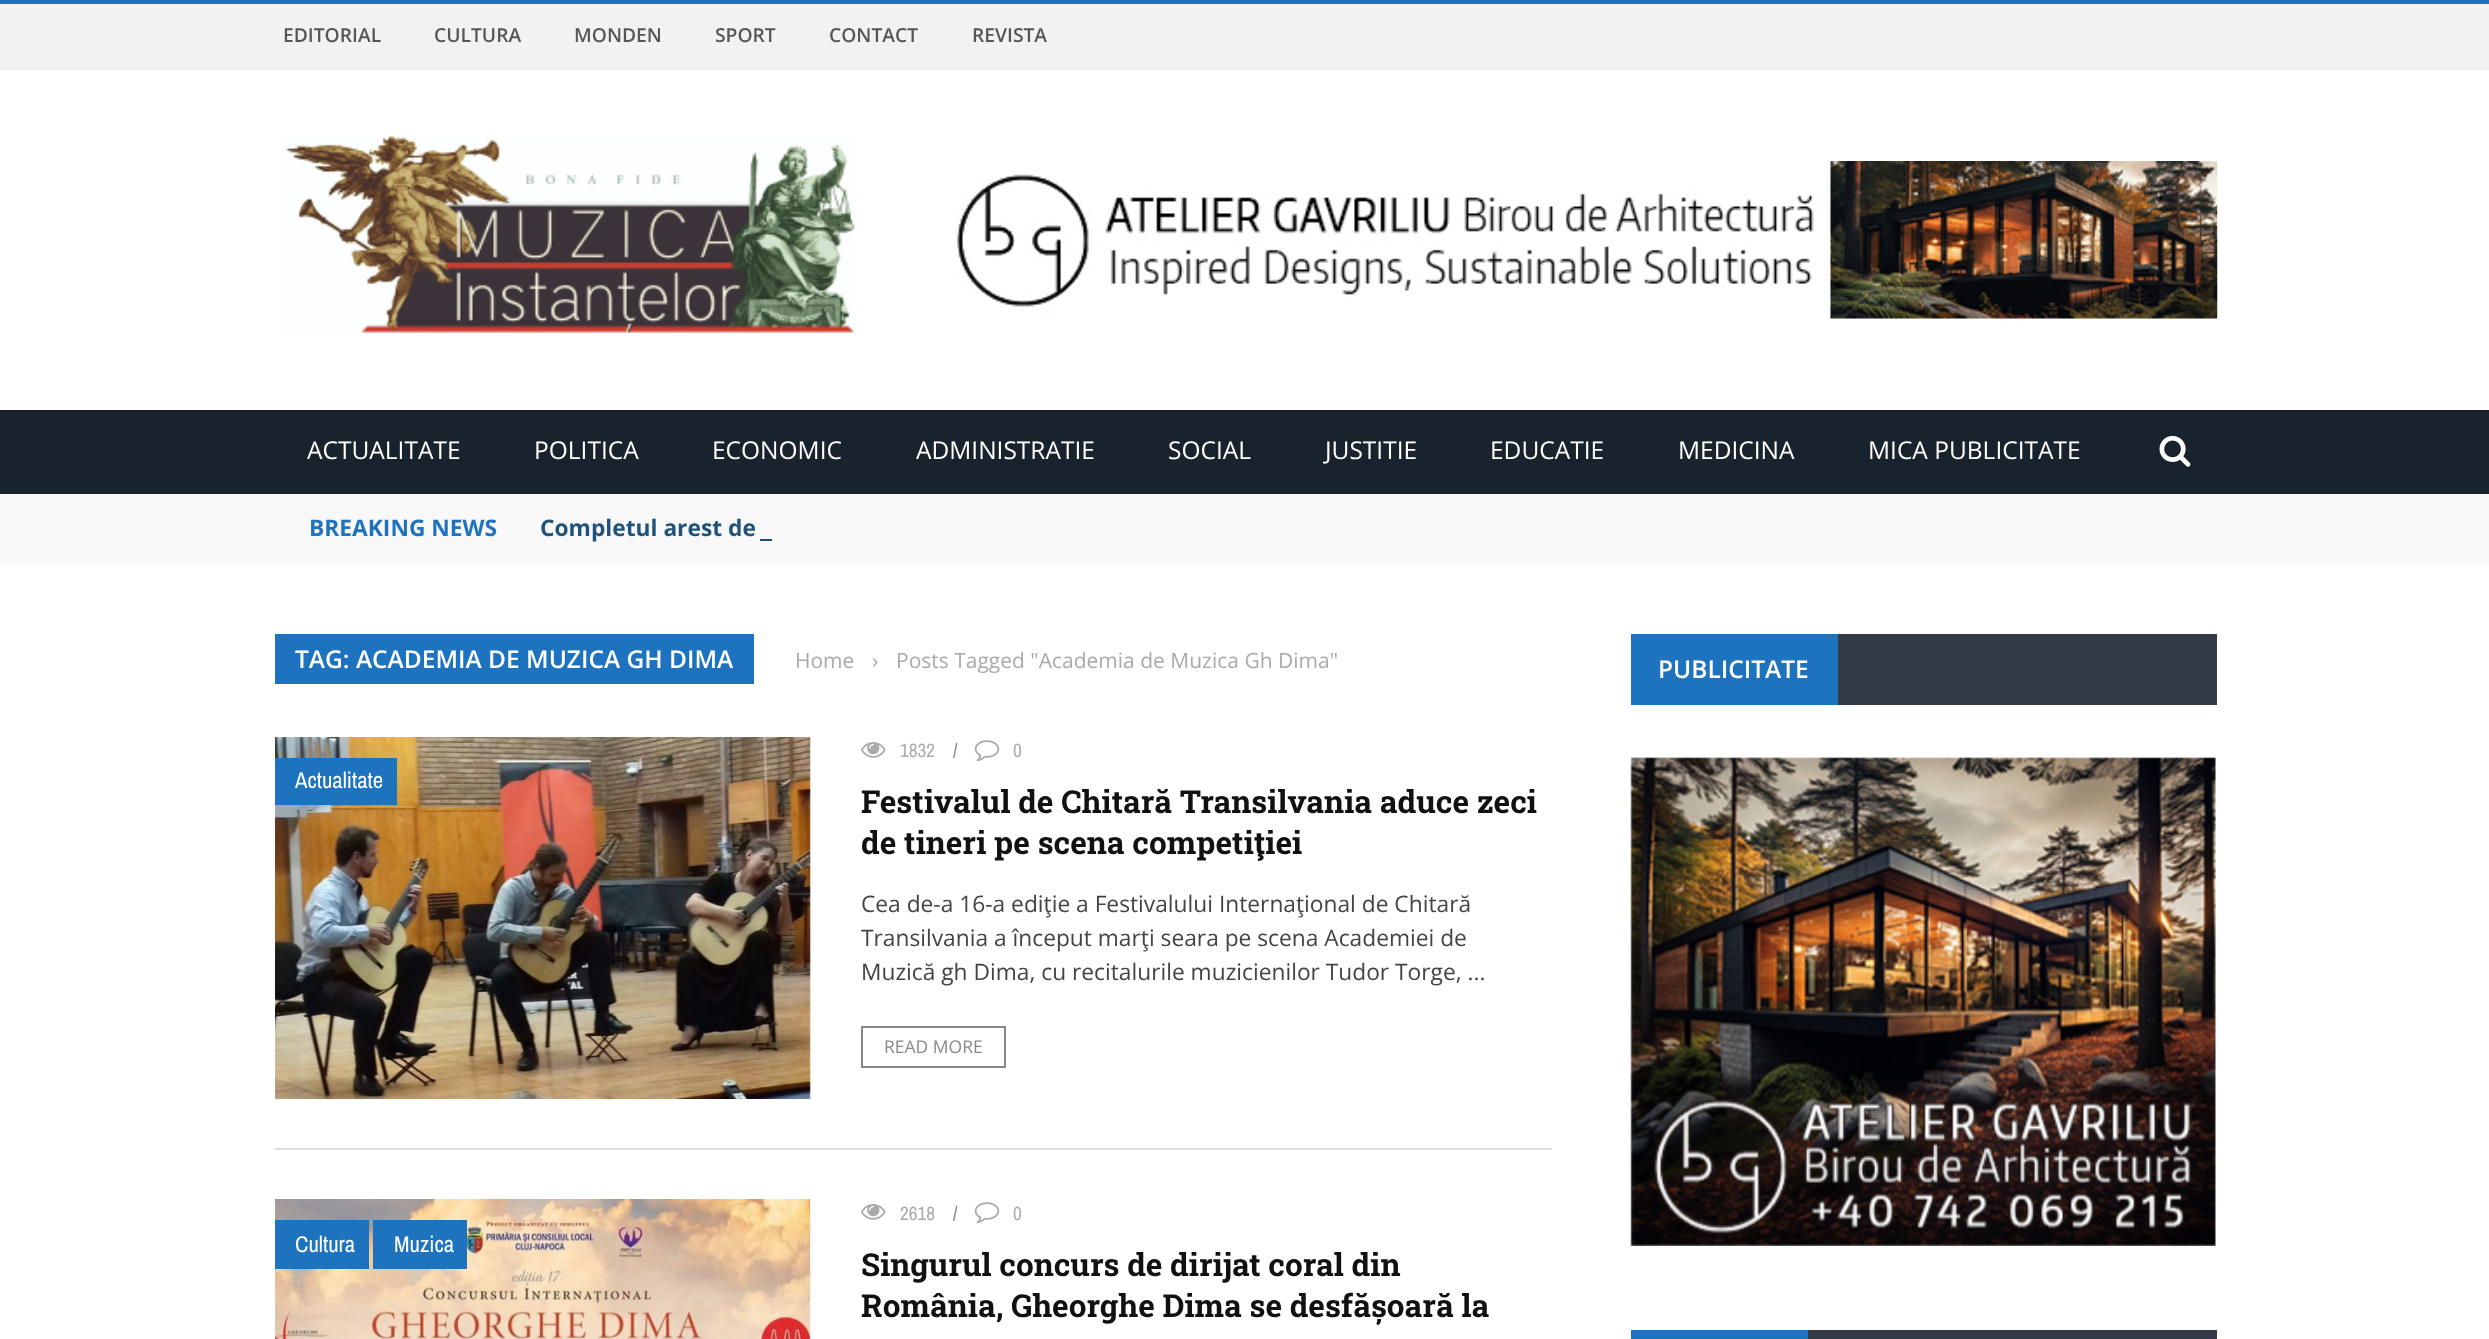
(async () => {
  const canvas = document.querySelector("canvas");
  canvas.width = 2489;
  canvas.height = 1339;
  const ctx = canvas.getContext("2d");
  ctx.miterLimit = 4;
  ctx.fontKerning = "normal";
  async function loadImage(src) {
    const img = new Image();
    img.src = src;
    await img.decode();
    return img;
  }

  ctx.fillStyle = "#ffffff";
  ctx.fillRect(0, 0, 2489, 1339);
  for (const [x, y, w, h, color] of [
    [0, 4, 2489, 64, "#f2f2f2"],
    [0, 0, 2489, 4, "#1e73be"],
    [0, 68, 2489, 2, "#eeeeee"],
  ]) {
    ctx.fillStyle = color;
    ctx.fillRect(x, y, w, h);
  }
  ctx.drawImage(await loadImage("img/1.png"), 284, 134, 572, 201);
  ctx.drawImage(await loadImage("img/2.png"), 956, 161, 1262, 158);
  ctx.fillStyle = "#19232d";
  ctx.fillRect(0, 410, 2489, 84);
  ctx.drawImage(await loadImage("img/3.png"), 2159, 435, 32, 32);
  for (const [x, y, w, h, color] of [
    [0, 494, 2489, 70, "#f8f8f8"],
    [760, 539, 12, 2, "#1f527b"],
    [275, 634, 479, 50, "#1e73be"],
  ]) {
    ctx.fillStyle = color;
    ctx.fillRect(x, y, w, h);
  }
  ctx.drawImage(await loadImage("img/4.png"), 275, 737, 536, 362);
  ctx.drawImage(await loadImage("img/5.png"), 861, 742, 25, 16);
  ctx.drawImage(await loadImage("img/6.png"), 974, 740, 26, 22);
  ctx.strokeStyle = "#888888";
  ctx.lineWidth = 2;
  ctx.strokeRect(862, 1027, 143, 40);
  ctx.fillRect(275, 758, 122, 47);
  ctx.fillStyle = "#dddddd";
  ctx.fillRect(275, 1148, 1277, 2);
  ctx.drawImage(await loadImage("img/7.png"), 275, 1199, 536, 140);
  ctx.drawImage(await loadImage("img/5.png"), 861, 1204, 25, 16);
  ctx.drawImage(await loadImage("img/6.png"), 974, 1202, 26, 22);
  for (const [x, y, w, h, color] of [
    [275, 1220, 94, 49, "#1e73be"],
    [373, 1220, 94, 49, "#1e73be"],
    [1838, 634, 379, 71, "#333946"],
    [1631, 634, 207, 71, "#1e73be"],
  ]) {
    ctx.fillStyle = color;
    ctx.fillRect(x, y, w, h);
  }
  ctx.drawImage(await loadImage("img/8.png"), 1630, 757, 586, 489);
  ctx.fillStyle = "#333946";
  ctx.fillRect(1808, 1330, 409, 9);
  ctx.fillStyle = "#1e73be";
  ctx.fillRect(1631, 1330, 177, 9);
  ctx.font = "600 19.25px Open Sans";
  ctx.fillStyle = "#565656";
  for (const [text, x, y] of [
    ["EDITORIAL", 283, 42],
    ["CULTURA", 434, 42],
    ["MONDEN", 574, 42],
    ["SPORT", 715, 42],
    ["CONTACT", 829, 42],
    ["REVISTA", 972, 42],
  ]) {
    ctx.fillText(text, x, y);
  }
  ctx.font = "24.5px Open Sans";
  ctx.fillStyle = "#ffffff";
  for (const [text, x, y] of [
    ["ACTUALITATE", 307, 459],
    ["POLITICA", 534, 459],
    ["ECONOMIC", 712, 459],
    ["ADMINISTRATIE", 916, 459],
    ["SOCIAL", 1168, 459],
    ["JUSTITIE", 1325, 459],
    ["EDUCATIE", 1490, 459],
    ["MEDICINA", 1678, 459],
    ["MICA PUBLICITATE", 1868, 459],
  ]) {
    ctx.fillText(text, x, y);
  }
  ctx.font = "bold 22.75px Open Sans";
  ctx.fillStyle = "#1e73be";
  ctx.fillText("BREAKING NEWS", 309, 536);
  ctx.fillStyle = "#1f527b";
  ctx.fillText("Completul arest de", 540, 536);
  ctx.font = "600 24.5px Open Sans";
  ctx.fillStyle = "#ffffff";
  ctx.fillText("TAG: ACADEMIA DE MUZICA GH DIMA", 295, 668);
  ctx.font = "21px Open Sans";
  ctx.fillStyle = "#aaaaaa";
  for (const [text, x, y] of [
    ["Home", 795, 668],
    ["›", 872, 668],
    ["Posts Tagged \"Academia de Muzica Gh Dima\"", 896, 668],
  ]) {
    ctx.fillText(text, x, y);
  }
  ctx.font = "19.25px Archivo Narrow";
  ctx.fillText("1832", 900, 757);
  ctx.fillStyle = "#888888";
  ctx.fillText("/", 953, 757);
  ctx.fillStyle = "#aaaaaa";
  ctx.fillText("0", 1013, 757);
  ctx.font = "bold 31.5px Roboto Slab";
  ctx.fillStyle = "#111111";
  ctx.fillText("Festivalul de Chitară Transilvania aduce zeci", 861, 813);
  ctx.fillText("de tineri pe scena competiţiei", 861, 854);
  ctx.font = "22.75px Open Sans";
  ctx.fillStyle = "#444444";
  for (const [text, x, y] of [
    ["Cea de-a 16-a ediţie a Festivalului Internaţional de Chitară", 861, 912],
    ["Transilvania a început marţi seara pe scena Academiei de", 861, 946],
    ["Muzică gh Dima, cu recitalurile muzicienilor Tudor Torge, ...", 861, 980],
  ]) {
    ctx.fillText(text, x, y);
  }
  ctx.font = "17.5px Open Sans";
  ctx.fillStyle = "#888888";
  ctx.fillText("READ MORE", 884, 1053);
  ctx.font = "22.75px Archivo Narrow";
  ctx.fillStyle = "#ffffff";
  ctx.fillText("Actualitate", 295, 788);
  ctx.font = "19.25px Archivo Narrow";
  ctx.fillStyle = "#aaaaaa";
  ctx.fillText("2618", 900, 1220);
  ctx.fillStyle = "#888888";
  ctx.fillText("/", 953, 1220);
  ctx.fillStyle = "#aaaaaa";
  ctx.fillText("0", 1013, 1220);
  ctx.font = "bold 31.5px Roboto Slab";
  ctx.fillStyle = "#111111";
  ctx.fillText("Singurul concurs de dirijat coral din", 861, 1276);
  ctx.fillText("România, Gheorghe Dima se desfășoară la", 861, 1317);
  ctx.font = "22.75px Archivo Narrow";
  ctx.fillStyle = "#ffffff";
  ctx.fillText("Cultura", 295, 1252);
  ctx.fillText("Muzica", 394, 1252);
  ctx.font = "600 24.5px Open Sans";
  ctx.fillText("PUBLICITATE", 1658, 678);
})();
